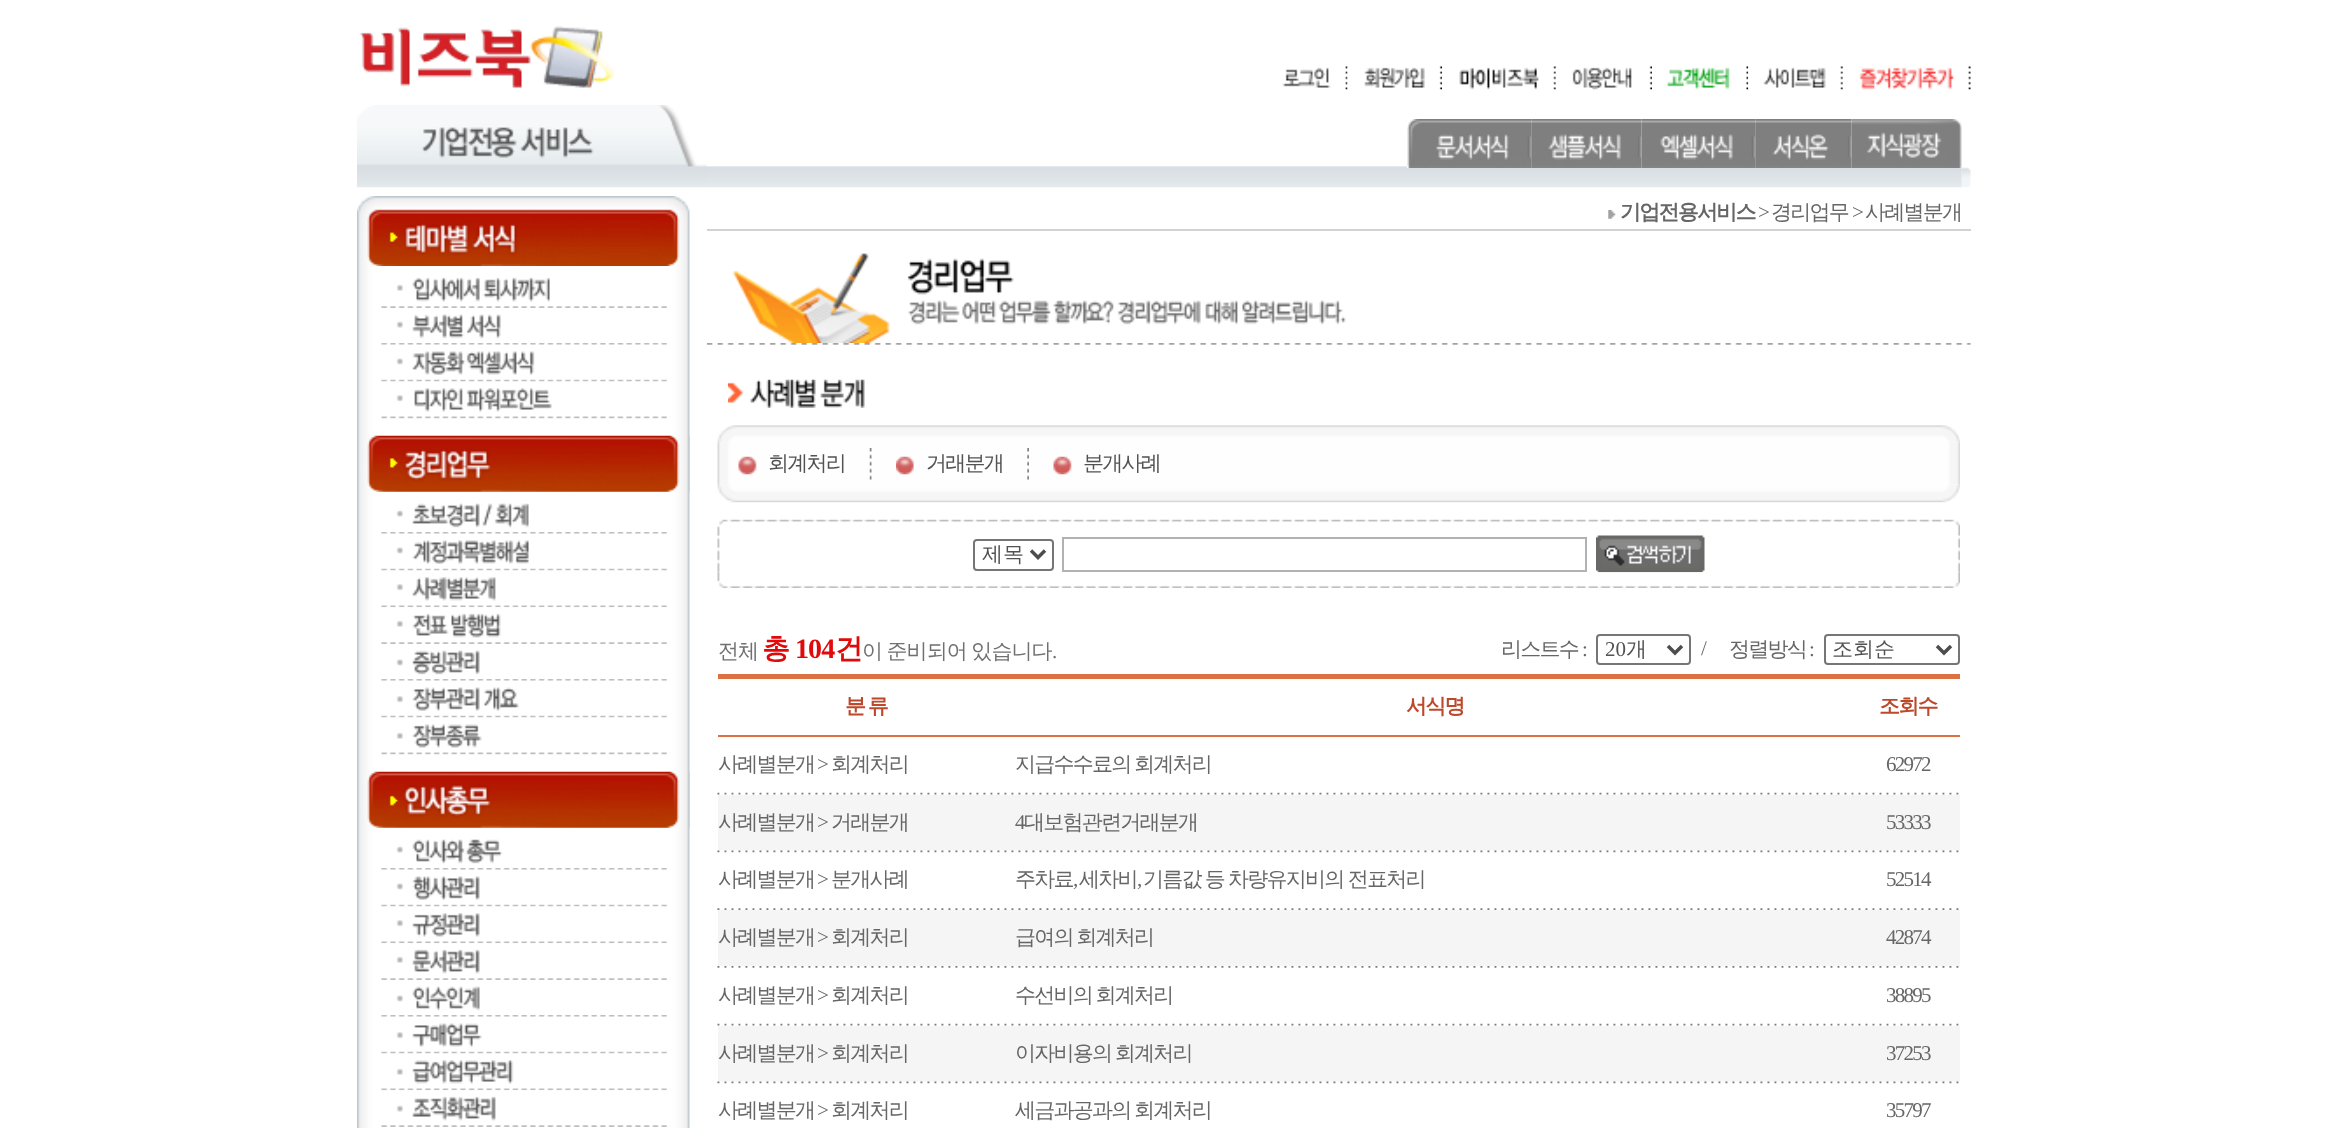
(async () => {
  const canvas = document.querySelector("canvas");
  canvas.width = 2327;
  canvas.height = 1128;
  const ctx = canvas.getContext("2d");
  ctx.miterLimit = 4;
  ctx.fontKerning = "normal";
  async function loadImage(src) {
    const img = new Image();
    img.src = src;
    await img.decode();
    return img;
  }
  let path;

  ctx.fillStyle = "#ffffff";
  ctx.fillRect(0, 0, 2327, 1128);
  ctx.drawImage(await loadImage("img/1.png"), 360, 26, 255, 62);
  ctx.drawImage(await loadImage("img/2.png"), 1282, 66, 66, 24);
  ctx.drawImage(await loadImage("img/3.png"), 1347, 66, 95, 24);
  ctx.drawImage(await loadImage("img/4.png"), 1459, 66, 97, 24);
  ctx.drawImage(await loadImage("img/5.png"), 1555, 66, 97, 24);
  ctx.drawImage(await loadImage("img/6.png"), 1667, 66, 82, 24);
  ctx.drawImage(await loadImage("img/7.png"), 1748, 66, 95, 24);
  ctx.drawImage(await loadImage("img/8.png"), 1842, 66, 129, 24);
  ctx.drawImage(await loadImage("img/9.png"), 357, 105, 350, 83);
  ctx.drawImage(await loadImage("img/10.png"), 707, 166, 1255, 22);
  ctx.drawImage(await loadImage("img/11.png"), 1407, 119, 125, 49);
  ctx.drawImage(await loadImage("img/12.png"), 1531, 119, 111, 49);
  ctx.drawImage(await loadImage("img/13.png"), 1641, 119, 115, 49);
  ctx.drawImage(await loadImage("img/14.png"), 1755, 119, 97, 49);
  ctx.drawImage(await loadImage("img/15.png"), 1851, 119, 111, 49);
  ctx.drawImage(await loadImage("img/16.png"), 1961, 125, 10, 62);
  ctx.drawImage(await loadImage("img/17.png"), 357, 196, 333, 70);
  ctx.drawImage(await loadImage("img/18.png"), 357, 266, 333, 862);
  ctx.drawImage(await loadImage("img/19.png"), 397, 277, 153, 25);
  ctx.drawImage(await loadImage("img/20.png"), 381, 306, 286, 2);
  ctx.drawImage(await loadImage("img/21.png"), 396, 314, 105, 25);
  ctx.drawImage(await loadImage("img/22.png"), 381, 343, 286, 2);
  ctx.drawImage(await loadImage("img/23.png"), 382, 344, 285, 31);
  ctx.drawImage(await loadImage("img/24.png"), 381, 379, 286, 3);
  ctx.drawImage(await loadImage("img/25.png"), 381, 381, 286, 31);
  ctx.drawImage(await loadImage("img/26.png"), 381, 416, 286, 3);
  ctx.drawImage(await loadImage("img/27.png"), 367, 435, 323, 57);
  ctx.drawImage(await loadImage("img/28.png"), 396, 503, 133, 25);
  ctx.drawImage(await loadImage("img/22.png"), 381, 532, 286, 2);
  ctx.drawImage(await loadImage("img/29.png"), 382, 533, 285, 31);
  ctx.drawImage(await loadImage("img/24.png"), 381, 568, 286, 3);
  ctx.drawImage(await loadImage("img/30.png"), 381, 570, 286, 31);
  ctx.drawImage(await loadImage("img/26.png"), 381, 605, 286, 3);
  ctx.drawImage(await loadImage("img/31.png"), 382, 607, 285, 31);
  ctx.drawImage(await loadImage("img/20.png"), 381, 642, 286, 2);
  ctx.drawImage(await loadImage("img/32.png"), 396, 650, 84, 25);
  ctx.drawImage(await loadImage("img/22.png"), 381, 679, 286, 2);
  ctx.drawImage(await loadImage("img/33.png"), 382, 680, 285, 31);
  ctx.drawImage(await loadImage("img/24.png"), 381, 715, 286, 3);
  ctx.drawImage(await loadImage("img/34.png"), 381, 717, 286, 31);
  ctx.drawImage(await loadImage("img/26.png"), 381, 752, 286, 3);
  ctx.drawImage(await loadImage("img/35.png"), 367, 771, 323, 57);
  ctx.drawImage(await loadImage("img/36.png"), 396, 839, 107, 25);
  ctx.drawImage(await loadImage("img/22.png"), 381, 868, 286, 2);
  ctx.drawImage(await loadImage("img/37.png"), 382, 869, 285, 31);
  ctx.drawImage(await loadImage("img/24.png"), 381, 904, 286, 3);
  ctx.drawImage(await loadImage("img/38.png"), 381, 906, 286, 31);
  ctx.drawImage(await loadImage("img/26.png"), 381, 941, 286, 3);
  ctx.drawImage(await loadImage("img/39.png"), 382, 943, 285, 31);
  ctx.drawImage(await loadImage("img/20.png"), 381, 978, 286, 2);
  ctx.drawImage(await loadImage("img/40.png"), 396, 986, 84, 25);
  ctx.drawImage(await loadImage("img/22.png"), 381, 1015, 286, 2);
  ctx.drawImage(await loadImage("img/41.png"), 382, 1016, 285, 31);
  ctx.drawImage(await loadImage("img/24.png"), 381, 1051, 286, 3);
  ctx.drawImage(await loadImage("img/42.png"), 381, 1053, 286, 31);
  ctx.drawImage(await loadImage("img/26.png"), 381, 1088, 286, 3);
  ctx.drawImage(await loadImage("img/43.png"), 382, 1090, 285, 31);
  ctx.drawImage(await loadImage("img/20.png"), 381, 1125, 286, 2);
  ctx.drawImage(await loadImage("img/44.png"), 1608, 210, 8, 9);
  ctx.fillStyle = "#d2d2d2";
  ctx.fillRect(707, 229, 1264, 2);
  ctx.drawImage(await loadImage("img/45.png"), 732, 253, 614, 90);
  ctx.drawImage(await loadImage("img/46.png"), 707, 343, 1264, 2);
  ctx.drawImage(await loadImage("img/47.png"), 728, 379, 137, 29);
  ctx.drawImage(await loadImage("img/49.png"), 717, 442, 1243, 43);
  ctx.drawImage(await loadImage("img/48.png"), 717, 425, 1243, 18);
  ctx.drawImage(await loadImage("img/50.png"), 738, 456, 19, 19);
  ctx.drawImage(await loadImage("img/51.png"), 869, 448, 3, 32);
  ctx.drawImage(await loadImage("img/52.png"), 896, 456, 18, 19);
  ctx.drawImage(await loadImage("img/53.png"), 1027, 448, 2, 32);
  ctx.drawImage(await loadImage("img/54.png"), 1053, 456, 19, 19);
  ctx.drawImage(await loadImage("img/55.png"), 717, 485, 1243, 18);
  ctx.drawImage(await loadImage("img/57.png"), 717, 535, 1243, 38);
  ctx.drawImage(await loadImage("img/56.png"), 717, 519, 1243, 17);
  ctx.beginPath();
  ctx.roundRect(974, 540, 79, 30, 3);
  ctx.strokeStyle = "#767676";
  ctx.lineWidth = 2;
  ctx.stroke();
  path = new Path2D("M1031 550.5L1038 557.5L1045 550.5");
  ctx.strokeStyle = "#4d4d4d";
  ctx.lineWidth = 3.5;
  ctx.stroke(path);
  ctx.strokeStyle = "#b2b2b2";
  ctx.lineWidth = 2;
  ctx.strokeRect(1063, 538, 523, 33);
  ctx.drawImage(await loadImage("img/58.png"), 1596, 535, 109, 38);
  ctx.drawImage(await loadImage("img/59.png"), 717, 572, 1243, 16);
  ctx.beginPath();
  ctx.roundRect(1597, 635, 93, 29, 3);
  ctx.strokeStyle = "#767676";
  ctx.stroke();
  path = new Path2D("M1668 646L1675 653L1682 646");
  ctx.strokeStyle = "#4d4d4d";
  ctx.lineWidth = 3.5;
  ctx.stroke(path);
  ctx.beginPath();
  ctx.roundRect(1825, 635, 134, 29, 3);
  ctx.strokeStyle = "#767676";
  ctx.lineWidth = 2;
  ctx.stroke();
  path = new Path2D("M1937 646L1944 653L1951 646");
  ctx.strokeStyle = "#4d4d4d";
  ctx.lineWidth = 3.5;
  ctx.stroke(path);
  ctx.fillStyle = "#dc7144";
  ctx.fillRect(718, 674, 1242, 5);
  ctx.fillRect(718, 735, 1242, 2);
  ctx.drawImage(await loadImage("img/60.png"), 717, 792, 1242, 3);
  ctx.fillStyle = "#f5f5f5";
  ctx.fillRect(718, 795, 1242, 56);
  ctx.drawImage(await loadImage("img/61.png"), 717, 850, 1243, 3);
  ctx.drawImage(await loadImage("img/62.png"), 717, 908, 1242, 2);
  ctx.fillRect(718, 910, 1242, 56);
  ctx.drawImage(await loadImage("img/63.png"), 717, 966, 1242, 2);
  ctx.drawImage(await loadImage("img/60.png"), 717, 1023, 1242, 3);
  ctx.fillRect(718, 1026, 1242, 56);
  ctx.drawImage(await loadImage("img/61.png"), 717, 1081, 1243, 3);
  ctx.letterSpacing = "-1.75px";
  ctx.font = "bold 21px WenQuanYi Zen Hei";
  ctx.fillStyle = "#666666";
  ctx.fillText("기업전용서비스", 1620, 219);
  ctx.font = "21px Liberation Serif";
  ctx.fillText(">", 1758, 219);
  ctx.font = "500 21px WenQuanYi Zen Hei";
  ctx.fillText("경리업무", 1771, 219);
  ctx.font = "21px Liberation Serif";
  ctx.fillText(">", 1852, 219);
  ctx.font = "500 21px WenQuanYi Zen Hei";
  ctx.fillText("사례별분개", 1865, 219);
  ctx.fillStyle = "#525252";
  for (const [text, x, y] of [
    ["회계처리", 768, 470],
    ["거래분개", 926, 470],
    ["분개사례", 1083, 470],
  ]) {
    ctx.fillText(text, x, y);
  }
  ctx.letterSpacing = "0px";
  ctx.fillText("제목", 982, 561);
  ctx.letterSpacing = "-0.9px";
  ctx.fillStyle = "#707070";
  ctx.fillText("전체", 718, 658);
  ctx.font = "bold 28px WenQuanYi Zen Hei";
  ctx.fillStyle = "#e00a0a";
  ctx.fillText("총", 762, 658);
  ctx.font = "bold 28px Liberation Serif";
  ctx.fillText("104", 795, 658);
  ctx.font = "bold 28px WenQuanYi Zen Hei";
  ctx.fillText("건", 835, 658);
  ctx.wordSpacing = "-1px";
  ctx.font = "500 21px WenQuanYi Zen Hei";
  ctx.fillStyle = "#707070";
  ctx.fillText("이 준비되어 있습니다", 862, 658);
  ctx.wordSpacing = "0px";
  ctx.font = "21px Liberation Serif";
  ctx.fillText(".", 1052, 658);
  ctx.letterSpacing = "-1.75px";
  ctx.font = "500 21px WenQuanYi Zen Hei";
  ctx.fillStyle = "#666666";
  ctx.fillText("리스트수", 1501, 656);
  ctx.font = "21px Liberation Serif";
  ctx.fillText(":", 1582, 656);
  ctx.letterSpacing = "0px";
  ctx.fillStyle = "#525252";
  ctx.fillText("20", 1605, 656);
  ctx.font = "500 21px WenQuanYi Zen Hei";
  ctx.fillText("개", 1626, 656);
  ctx.letterSpacing = "-0.9px";
  ctx.font = "21px Liberation Serif";
  ctx.fillStyle = "#707070";
  ctx.fillText("/", 1701, 655);
  ctx.letterSpacing = "-1.75px";
  ctx.font = "500 21px WenQuanYi Zen Hei";
  ctx.fillStyle = "#666666";
  ctx.fillText("정렬방식", 1729, 656);
  ctx.font = "21px Liberation Serif";
  ctx.fillText(":", 1809, 656);
  ctx.letterSpacing = "0px";
  ctx.font = "500 21px WenQuanYi Zen Hei";
  ctx.fillStyle = "#525252";
  ctx.fillText("조회순", 1832, 656);
  ctx.letterSpacing = "-1.75px";
  ctx.wordSpacing = "-1px";
  ctx.font = "bold 21px WenQuanYi Zen Hei";
  ctx.fillStyle = "#bc492b";
  ctx.fillText("분 류", 845, 713);
  ctx.wordSpacing = "0px";
  ctx.fillText("서식명", 1406, 713);
  ctx.fillText("조회수", 1879, 713);
  ctx.font = "500 21px WenQuanYi Zen Hei";
  ctx.fillStyle = "#666666";
  ctx.fillText("사례별분개", 718, 771);
  ctx.font = "21px Liberation Serif";
  ctx.fillText(">", 817, 771);
  ctx.font = "500 21px WenQuanYi Zen Hei";
  ctx.fillText("회계처리", 831, 771);
  ctx.wordSpacing = "-1px";
  ctx.fillText("지급수수료의 회계처리", 1015, 771);
  ctx.wordSpacing = "0px";
  ctx.font = "21px Liberation Serif";
  ctx.fillText("62972", 1886, 771);
  ctx.font = "500 21px WenQuanYi Zen Hei";
  ctx.fillText("사례별분개", 718, 829);
  ctx.font = "21px Liberation Serif";
  ctx.fillText(">", 817, 829);
  ctx.font = "500 21px WenQuanYi Zen Hei";
  ctx.fillText("거래분개", 831, 829);
  ctx.font = "21px Liberation Serif";
  ctx.fillText("4", 1015, 829);
  ctx.font = "500 21px WenQuanYi Zen Hei";
  ctx.fillText("대보험관련거래분개", 1024, 829);
  ctx.font = "21px Liberation Serif";
  ctx.fillText("53333", 1886, 829);
  ctx.font = "500 21px WenQuanYi Zen Hei";
  ctx.fillText("사례별분개", 718, 886);
  ctx.font = "21px Liberation Serif";
  ctx.fillText(">", 817, 886);
  ctx.font = "500 21px WenQuanYi Zen Hei";
  ctx.fillText("분개사례", 831, 886);
  ctx.fillText("주차료", 1015, 886);
  ctx.font = "21px Liberation Serif";
  ctx.fillText(",", 1073, 886);
  ctx.font = "500 21px WenQuanYi Zen Hei";
  ctx.fillText("세차비", 1079, 886);
  ctx.font = "21px Liberation Serif";
  ctx.fillText(",", 1137, 886);
  ctx.wordSpacing = "-0.5px";
  ctx.font = "500 21px WenQuanYi Zen Hei";
  ctx.fillText("기름값 등 차량유지비의 전표처리", 1143, 886);
  ctx.wordSpacing = "0px";
  ctx.font = "21px Liberation Serif";
  ctx.fillText("52514", 1886, 886);
  ctx.font = "500 21px WenQuanYi Zen Hei";
  ctx.fillText("사례별분개", 718, 944);
  ctx.font = "21px Liberation Serif";
  ctx.fillText(">", 817, 944);
  ctx.font = "500 21px WenQuanYi Zen Hei";
  ctx.fillText("회계처리", 831, 944);
  ctx.wordSpacing = "-1px";
  ctx.fillText("급여의 회계처리", 1015, 944);
  ctx.wordSpacing = "0px";
  ctx.font = "21px Liberation Serif";
  ctx.fillText("42874", 1886, 944);
  ctx.font = "500 21px WenQuanYi Zen Hei";
  ctx.fillText("사례별분개", 718, 1002);
  ctx.font = "21px Liberation Serif";
  ctx.fillText(">", 817, 1002);
  ctx.font = "500 21px WenQuanYi Zen Hei";
  ctx.fillText("회계처리", 831, 1002);
  ctx.wordSpacing = "-1px";
  ctx.fillText("수선비의 회계처리", 1015, 1002);
  ctx.wordSpacing = "0px";
  ctx.font = "21px Liberation Serif";
  ctx.fillText("38895", 1886, 1002);
  ctx.font = "500 21px WenQuanYi Zen Hei";
  ctx.fillText("사례별분개", 718, 1060);
  ctx.font = "21px Liberation Serif";
  ctx.fillText(">", 817, 1060);
  ctx.font = "500 21px WenQuanYi Zen Hei";
  ctx.fillText("회계처리", 831, 1060);
  ctx.wordSpacing = "-1px";
  ctx.fillText("이자비용의 회계처리", 1015, 1060);
  ctx.wordSpacing = "0px";
  ctx.font = "21px Liberation Serif";
  ctx.fillText("37253", 1886, 1060);
  ctx.font = "500 21px WenQuanYi Zen Hei";
  ctx.fillText("사례별분개", 718, 1117);
  ctx.font = "21px Liberation Serif";
  ctx.fillText(">", 817, 1117);
  ctx.font = "500 21px WenQuanYi Zen Hei";
  ctx.fillText("회계처리", 831, 1117);
  ctx.wordSpacing = "-1px";
  ctx.fillText("세금과공과의 회계처리", 1015, 1117);
  ctx.wordSpacing = "0px";
  ctx.font = "21px Liberation Serif";
  ctx.fillText("35797", 1886, 1117);
})();
